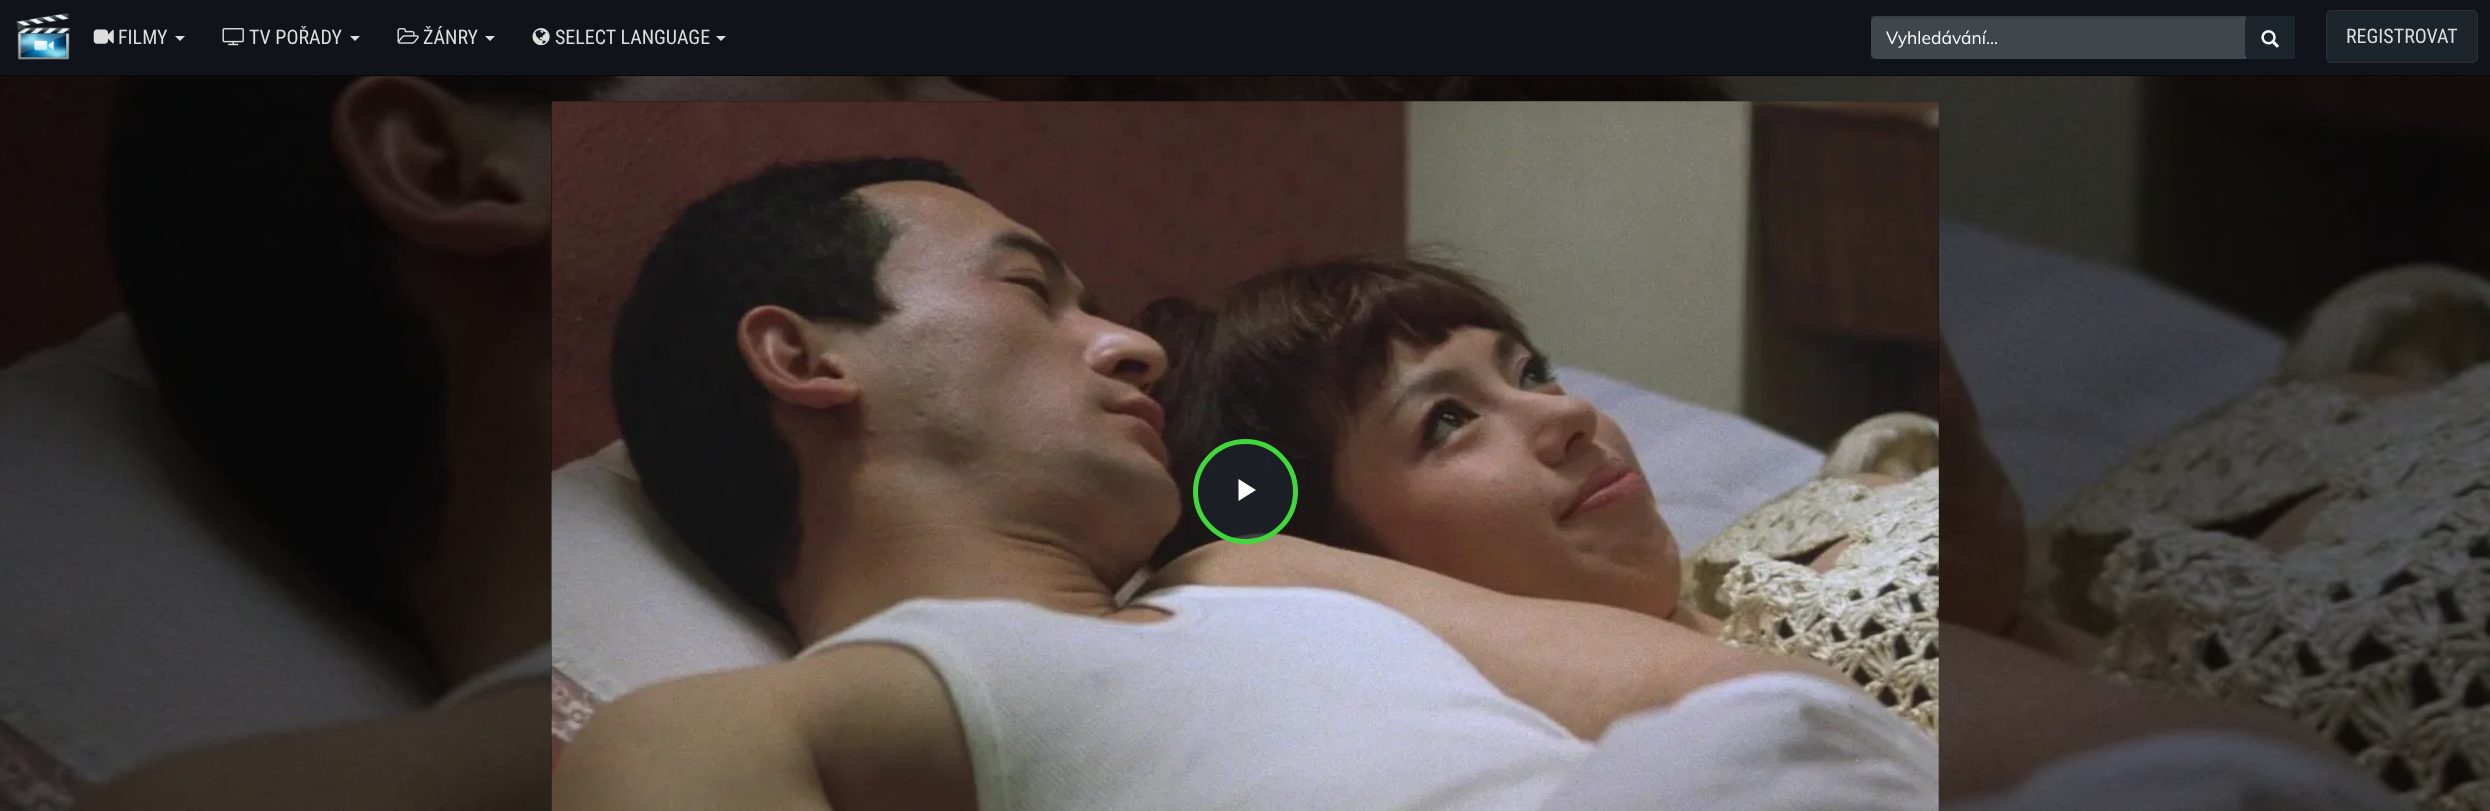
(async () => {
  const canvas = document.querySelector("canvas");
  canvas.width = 2490;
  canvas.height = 811;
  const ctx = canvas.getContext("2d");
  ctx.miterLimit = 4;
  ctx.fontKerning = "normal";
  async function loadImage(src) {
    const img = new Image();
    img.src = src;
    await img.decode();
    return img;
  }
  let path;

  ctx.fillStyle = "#ffffff";
  ctx.fillRect(0, 0, 2490, 811);
  ctx.drawImage(await loadImage("img/1.png"), 0, 76, 2490, 735);
  ctx.fillStyle = "#10141a";
  ctx.fillRect(0, 0, 2490, 75);
  ctx.fillStyle = "#080808";
  ctx.fillRect(0, 75, 2490, 1);
  ctx.drawImage(await loadImage("img/2.png"), 16, 13, 55, 47);
  ctx.drawImage(await loadImage("img/3.png"), 93, 29, 21, 15);
  ctx.fillStyle = "#dddddd";
  path = new Path2D("M175 36H185L180 41Z");
  ctx.fill(path);
  ctx.drawImage(await loadImage("img/4.png"), 222, 28, 22, 18);
  path = new Path2D("M350 36H360L355 41Z");
  ctx.fill(path);
  ctx.drawImage(await loadImage("img/5.png"), 397, 28, 22, 16);
  path = new Path2D("M485 36H495L490 41Z");
  ctx.fill(path);
  ctx.drawImage(await loadImage("img/6.png"), 532, 28, 18, 18);
  path = new Path2D("M716 36H726L721 41Z");
  ctx.fill(path);
  ctx.fillStyle = "#1c242c";
  ctx.fillRect(1871, 16, 424, 43);
  ctx.fillStyle = "#3f464c";
  ctx.beginPath();
  ctx.roundRect(1871, 16, 375, 43, [5, 0, 0, 5]);
  ctx.fill();
  ctx.fillStyle = "rgba(0, 0, 0, 0.07)";
  path = new Path2D("M1876 18H2246V16H1876C1873 16 1871 18 1871 21V22C1871 20 1873 18 1876 18Z");
  ctx.fill(path);
  ctx.fillStyle = "#1c242c";
  ctx.beginPath();
  ctx.roundRect(2245, 20, 50, 35, [0, 5, 5, 0]);
  ctx.fill();
  ctx.drawImage(await loadImage("img/7.png"), 2261, 30, 18, 18);
  ctx.beginPath();
  ctx.roundRect(2326.5, 10.5, 151, 52, 4.5);
  ctx.fill();
  ctx.strokeStyle = "#303030";
  ctx.stroke();
  ctx.fillStyle = "#000000";
  ctx.fillRect(551, 101, 1388, 710);
  ctx.drawImage(await loadImage("img/8.png"), 551, 101, 1388, 710);
  ctx.drawImage(await loadImage("img/9.png"), 552, 101, 1387, 710);
  ctx.fillStyle = "rgba(28, 36, 44, 0.7)";
  ctx.beginPath();
  ctx.arc(1245.5, 491.5, 50, 0, Math.PI * 2);
  ctx.fill();
  ctx.strokeStyle = "#40d83b";
  ctx.lineWidth = 5;
  ctx.stroke();
  ctx.fillStyle = "#ffffff";
  path = new Path2D("M1238.5 479V501L1256 490Z");
  ctx.fill(path);
  ctx.font = "20px Roboto Condensed";
  ctx.fillStyle = "#dddddd";
  for (const [text, x, y] of [
    ["FILMY", 118, 44],
    ["TV POŘADY", 249, 44],
    ["ŽÁNRY", 423, 44],
    ["SELECT LANGUAGE", 555, 44],
  ]) {
    ctx.fillText(text, x, y);
  }
  ctx.font = "17.5px Muli";
  ctx.fillStyle = "#ffffff";
  ctx.fillText("Vyhledávání...", 1886, 44);
  ctx.font = "20px Roboto Condensed";
  ctx.fillStyle = "#dddddd";
  ctx.fillText("REGISTROVAT", 2346, 43);
})();
